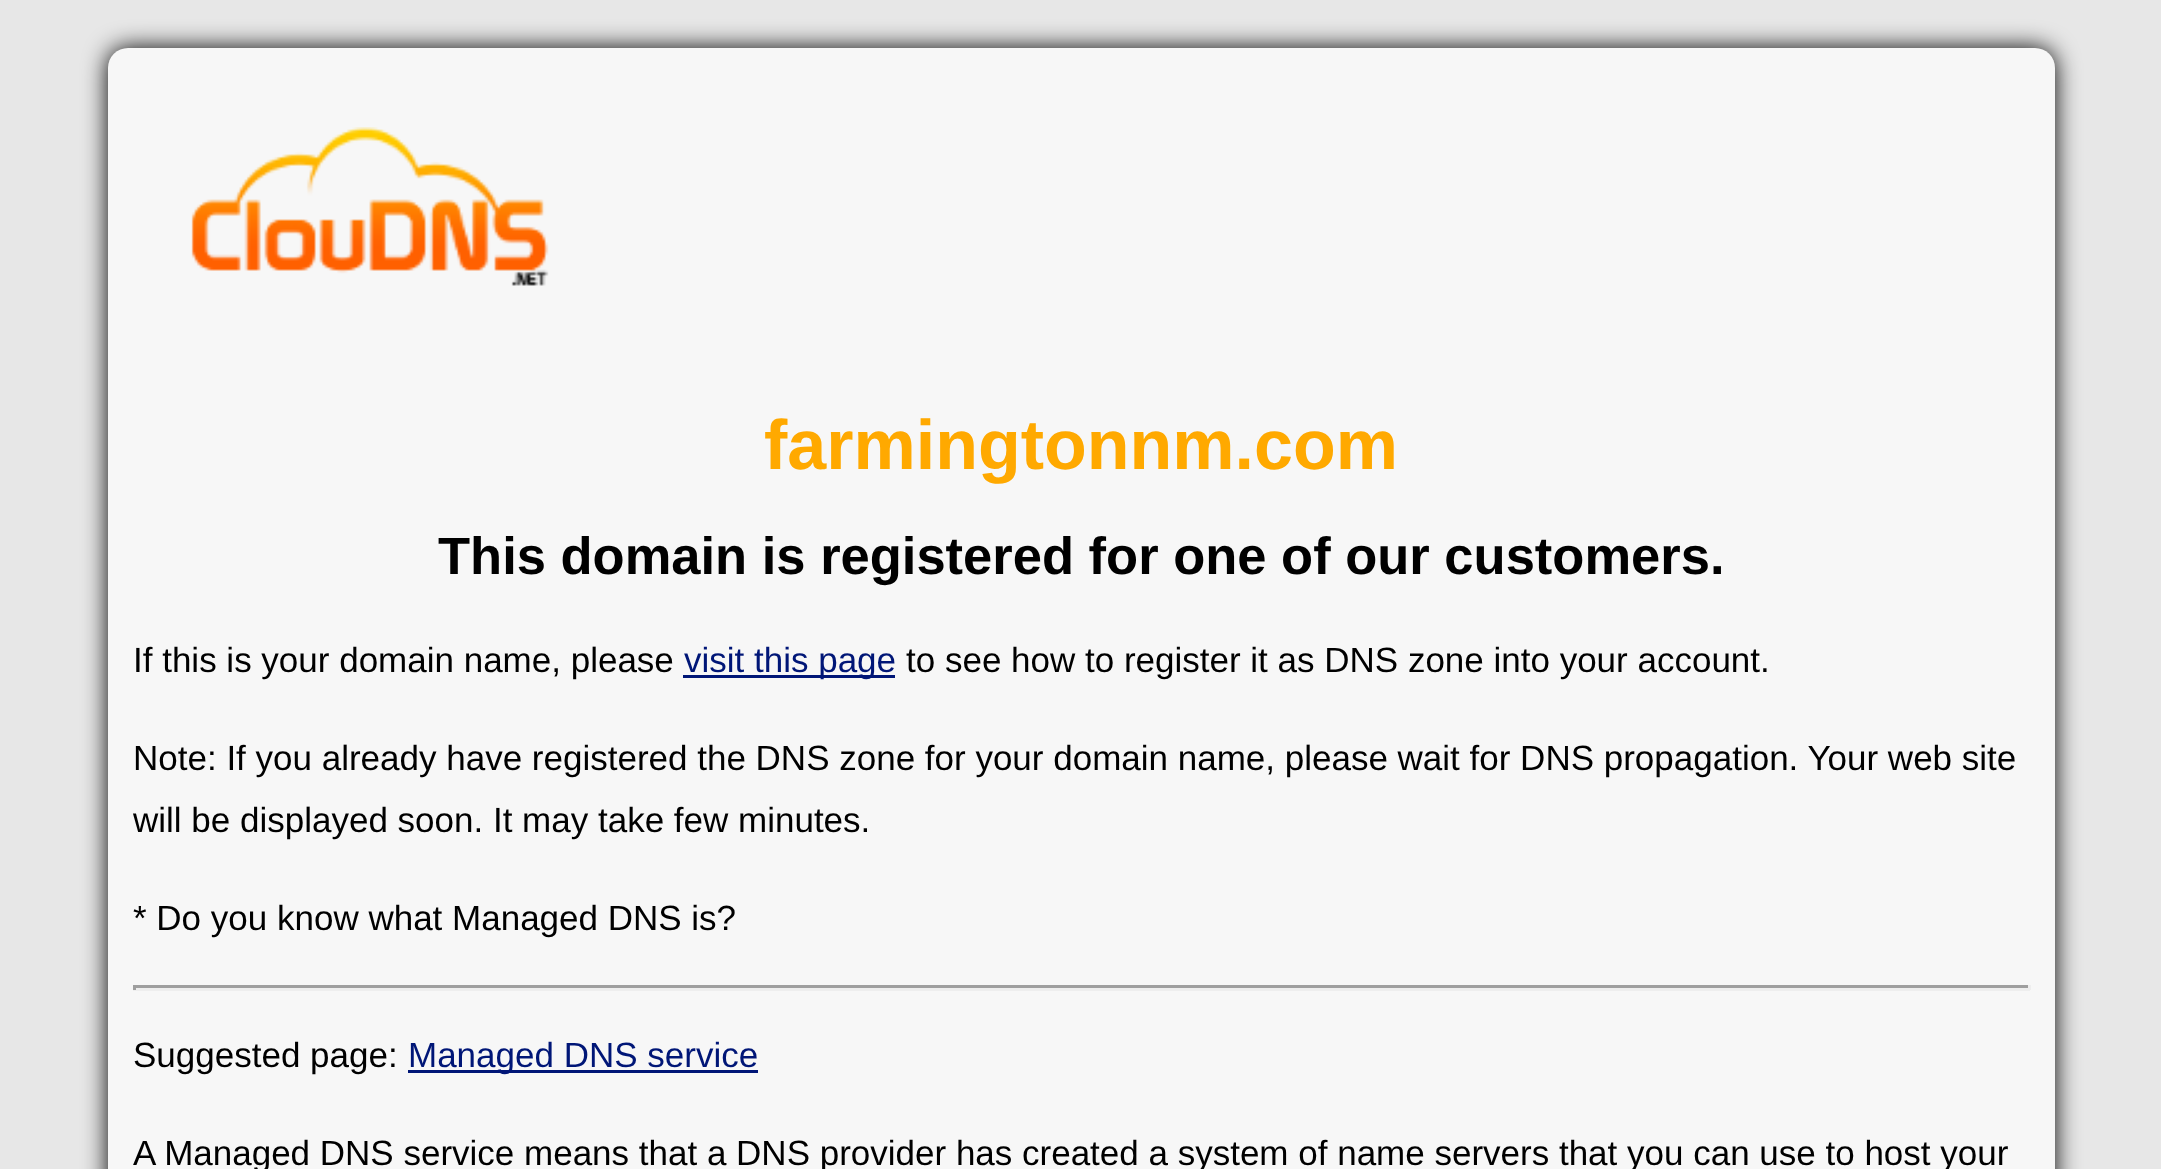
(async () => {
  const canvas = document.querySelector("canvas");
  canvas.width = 2161;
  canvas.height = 1169;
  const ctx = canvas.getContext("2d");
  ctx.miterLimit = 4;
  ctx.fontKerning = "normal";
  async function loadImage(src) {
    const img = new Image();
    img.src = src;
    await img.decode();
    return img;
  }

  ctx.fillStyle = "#e7e7e7";
  ctx.fillRect(0, 0, 2161, 1169);
  ctx.fillStyle = "#000000";
  ctx.filter = "blur(12.5px)";
  ctx.beginPath();
  ctx.roundRect(108, 48, 1947, 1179, 20);
  ctx.fill();
  ctx.filter = "none";
  ctx.fillStyle = "#f7f7f7";
  ctx.beginPath();
  ctx.roundRect(108, 48, 1947, 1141, 20);
  ctx.fill();
  ctx.drawImage(await loadImage("img/1.png"), 191, 127, 358, 159);
  for (const [x, y, w, h, color] of [
    [683, 675, 212, 3, "#001677"],
    [133, 985, 1897, 3, "#9f9f9f"],
    [2028, 985, 3, 5, "#eeeeee"],
    [133, 988, 1897, 3, "#eeeeee"],
    [133, 985, 3, 5, "#9f9f9f"],
    [408, 1070, 350, 3, "#001677"],
  ]) {
    ctx.fillStyle = color;
    ctx.fillRect(x, y, w, h);
  }
  ctx.font = "bold 70px Liberation Sans";
  ctx.fillStyle = "#ffa900";
  ctx.fillText("farmingtonnm.com", 764, 469);
  ctx.font = "bold 52.5px Liberation Sans";
  ctx.fillStyle = "#000000";
  ctx.fillText("This domain is registered for one of our customers.", 438, 574);
  ctx.font = "35px Liberation Sans";
  ctx.fillText("If this is your domain name, please", 133, 672);
  ctx.fillStyle = "#001677";
  ctx.fillText("visit this page", 684, 672);
  ctx.fillStyle = "#000000";
  for (const [text, x, y] of [
    ["to see how to register it as DNS zone into your account.", 906, 672],
    ["Note: If you already have registered the DNS zone for your domain name, please wait for DNS propagation. Your web site", 133, 770],
    ["will be displayed soon. It may take few minutes.", 133, 832],
    ["* Do you know what Managed DNS is?", 133, 930],
    ["Suggested page:", 133, 1067],
  ]) {
    ctx.fillText(text, x, y);
  }
  ctx.fillStyle = "#001677";
  ctx.fillText("Managed DNS service", 408, 1067);
  ctx.fillStyle = "#000000";
  ctx.fillText("A Managed DNS service means that a DNS provider has created a system of name servers that you can use to host your", 133, 1165);
})();
